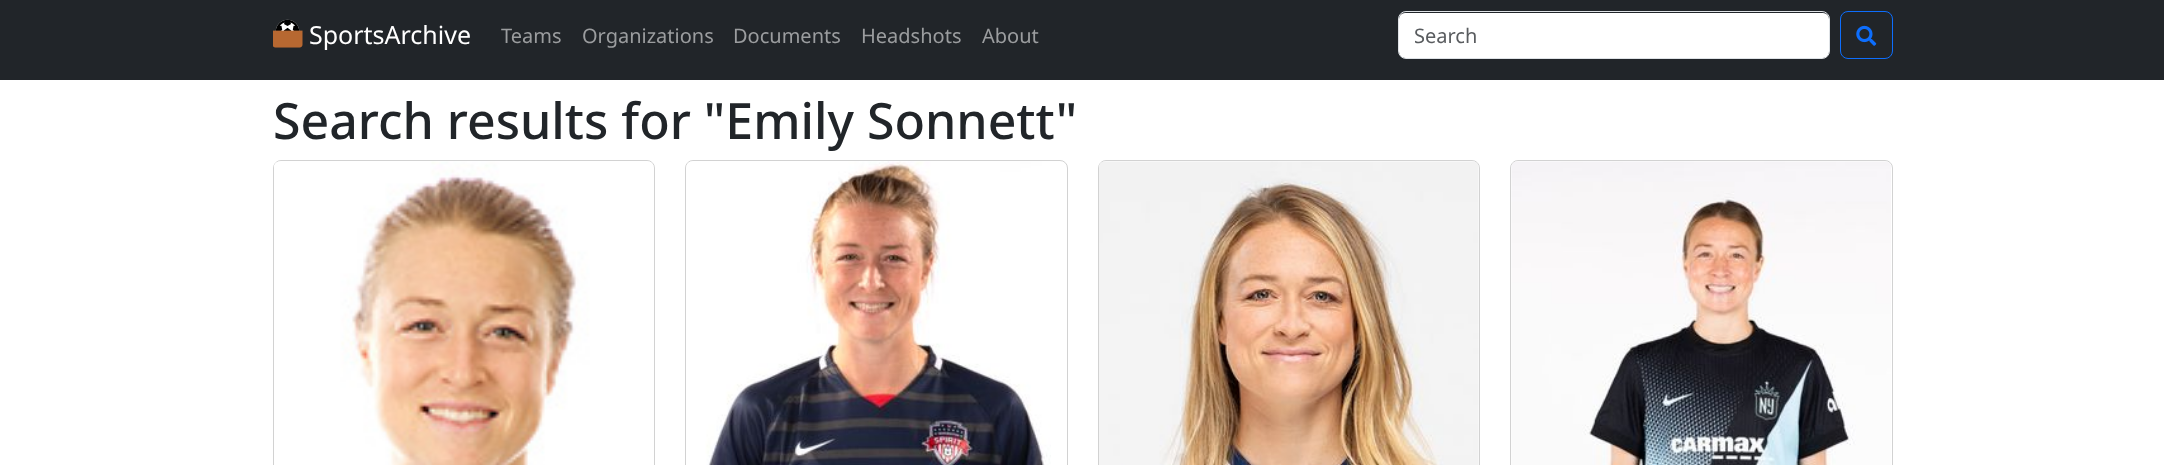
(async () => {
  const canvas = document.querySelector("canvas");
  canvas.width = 2164;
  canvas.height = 465;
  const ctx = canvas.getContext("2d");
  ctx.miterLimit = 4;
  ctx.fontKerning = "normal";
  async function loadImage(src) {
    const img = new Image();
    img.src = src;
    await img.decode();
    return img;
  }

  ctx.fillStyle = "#212529";
  ctx.fillRect(0, 0, 2164, 465);
  ctx.drawImage(await loadImage("img/1.png"), 273, 19, 30, 29);
  ctx.fillStyle = "#ffffff";
  ctx.beginPath();
  ctx.roundRect(1399, 13, 430, 45, 6);
  ctx.fill();
  ctx.beginPath();
  ctx.roundRect(1398.5, 11.5, 431, 47, 7.5);
  ctx.strokeStyle = "#dee2e6";
  ctx.stroke();
  ctx.beginPath();
  ctx.roundRect(1840.5, 11.5, 52, 47, 7.5);
  ctx.strokeStyle = "#0d6efd";
  ctx.stroke();
  ctx.drawImage(await loadImage("img/2.png"), 1856, 25, 21, 21);
  ctx.fillRect(0, 80, 2164, 385);
  ctx.beginPath();
  ctx.roundRect(273.5, 160.5, 381, 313, 7.5);
  ctx.strokeStyle = "#d2d2d2";
  ctx.stroke();
  ctx.drawImage(await loadImage("img/3.png"), 274, 161, 380, 304);
  ctx.beginPath();
  ctx.roundRect(685.5, 160.5, 382, 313, 7.5);
  ctx.stroke();
  ctx.drawImage(await loadImage("img/4.png"), 686, 161, 365, 304);
  ctx.beginPath();
  ctx.roundRect(1098.5, 160.5, 381, 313, 7.5);
  ctx.stroke();
  ctx.drawImage(await loadImage("img/5.png"), 1099, 161, 380, 304);
  ctx.beginPath();
  ctx.roundRect(1510.5, 160.5, 382, 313, 7.5);
  ctx.stroke();
  ctx.drawImage(await loadImage("img/6.png"), 1511, 161, 380, 304);
  ctx.font = "25px Noto Sans";
  ctx.fillText("SportsArchive", 309, 44);
  ctx.font = "20px Noto Sans";
  ctx.fillStyle = "#9b9d9f";
  for (const [text, x, y] of [
    ["Teams", 501, 43],
    ["Organizations", 582, 43],
    ["Documents", 733, 43],
    ["Headshots", 861, 43],
    ["About", 982, 43],
  ]) {
    ctx.fillText(text, x, y);
  }
  ctx.fillStyle = "#595c5f";
  ctx.fillText("Search", 1414, 43);
  ctx.font = "500 50px Noto Sans";
  ctx.fillStyle = "#212529";
  ctx.fillText("Search results for \"Emily Sonnett\"", 273, 139);
})();
